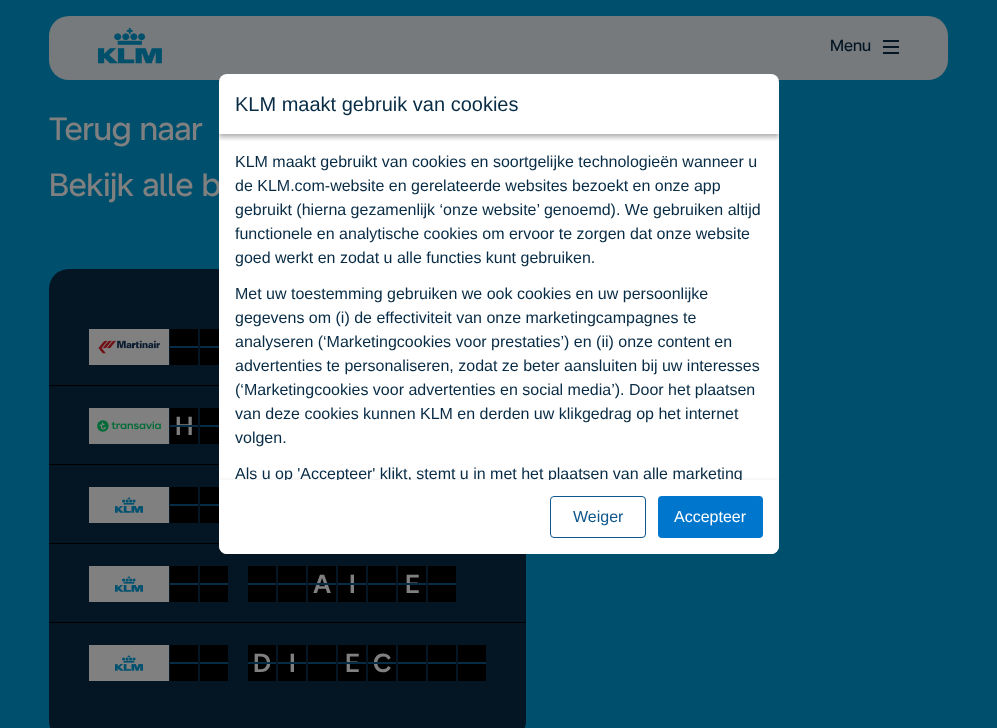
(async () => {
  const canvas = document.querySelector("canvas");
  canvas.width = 997;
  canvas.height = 728;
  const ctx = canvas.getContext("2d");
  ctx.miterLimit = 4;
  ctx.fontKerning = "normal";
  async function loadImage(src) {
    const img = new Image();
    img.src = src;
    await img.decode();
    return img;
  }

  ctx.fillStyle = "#00506d";
  ctx.fillRect(0, 0, 997, 728);
  ctx.fillStyle = "#767a7c";
  ctx.beginPath();
  ctx.roundRect(49, 16, 899, 64, 20);
  ctx.fill();
  ctx.drawImage(await loadImage("img/1.png"), 98, 28, 64, 36);
  for (const [x, y, w, h, color] of [
    [883, 46, 16, 2, "#041623"],
    [883, 40, 16, 2, "#041623"],
    [883, 52, 16, 2, "#041623"],
  ]) {
    ctx.fillStyle = color;
    ctx.fillRect(x, y, w, h);
  }
  ctx.beginPath();
  ctx.roundRect(49, 269, 477, 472, 20);
  ctx.fill();
  ctx.fillStyle = "#000000";
  ctx.fillRect(49, 385, 170, 1);
  ctx.fillStyle = "#808080";
  ctx.fillRect(89, 329, 80, 36);
  ctx.drawImage(await loadImage("img/2.png"), 98, 340, 62, 14);
  for (const [x, y, w, h, color] of [
    [170, 329, 28, 17, "#000000"],
    [170, 346, 28, 2, "#072c46"],
    [170, 348, 28, 17, "#000000"],
    [200, 329, 19, 17, "#000000"],
    [200, 346, 19, 2, "#072c46"],
    [200, 348, 19, 17, "#000000"],
    [49, 464, 170, 1, "#000000"],
    [89, 408, 80, 36, "#808080"],
  ]) {
    ctx.fillStyle = color;
    ctx.fillRect(x, y, w, h);
  }
  ctx.drawImage(await loadImage("img/3.png"), 97, 420, 64, 12);
  for (const [x, y, w, h, color] of [
    [170, 408, 28, 36, "#000000"],
    [200, 408, 19, 17, "#000000"],
    [200, 425, 19, 2, "#072c46"],
    [200, 427, 19, 17, "#000000"],
    [49, 543, 170, 1, "#000000"],
    [89, 487, 80, 36, "#808080"],
  ]) {
    ctx.fillStyle = color;
    ctx.fillRect(x, y, w, h);
  }
  ctx.drawImage(await loadImage("img/4.png"), 115, 497, 28, 16);
  for (const [x, y, w, h, color] of [
    [170, 487, 28, 17, "#000000"],
    [170, 504, 28, 2, "#072c46"],
    [170, 506, 28, 17, "#000000"],
    [200, 487, 19, 17, "#000000"],
    [200, 504, 19, 2, "#072c46"],
    [200, 506, 19, 17, "#000000"],
    [49, 622, 477, 1, "#000000"],
    [89, 566, 80, 36, "#808080"],
  ]) {
    ctx.fillStyle = color;
    ctx.fillRect(x, y, w, h);
  }
  ctx.drawImage(await loadImage("img/4.png"), 115, 576, 28, 16);
  for (const [x, y, w, h, color] of [
    [170, 566, 28, 17, "#000000"],
    [170, 583, 28, 2, "#072c46"],
    [170, 585, 28, 17, "#000000"],
    [200, 566, 28, 17, "#000000"],
    [200, 583, 28, 2, "#072c46"],
    [200, 585, 28, 17, "#000000"],
    [248, 566, 28, 17, "#000000"],
    [248, 583, 28, 2, "#072c46"],
    [248, 585, 28, 17, "#000000"],
    [278, 566, 28, 17, "#000000"],
    [278, 583, 28, 2, "#072c46"],
    [278, 585, 28, 17, "#000000"],
    [308, 566, 28, 36, "#000000"],
    [338, 566, 28, 36, "#000000"],
    [368, 566, 28, 17, "#000000"],
    [368, 583, 28, 2, "#072c46"],
    [368, 585, 28, 17, "#000000"],
    [398, 566, 28, 36, "#000000"],
    [428, 566, 28, 17, "#000000"],
    [428, 583, 28, 2, "#072c46"],
    [428, 585, 28, 17, "#000000"],
    [89, 645, 80, 36, "#808080"],
  ]) {
    ctx.fillStyle = color;
    ctx.fillRect(x, y, w, h);
  }
  ctx.drawImage(await loadImage("img/4.png"), 115, 655, 28, 16);
  for (const [x, y, w, h, color] of [
    [170, 645, 28, 17, "#000000"],
    [170, 662, 28, 2, "#072c46"],
    [170, 664, 28, 17, "#000000"],
    [200, 645, 28, 17, "#000000"],
    [200, 662, 28, 2, "#072c46"],
    [200, 664, 28, 17, "#000000"],
    [248, 645, 28, 36, "#000000"],
    [278, 645, 28, 36, "#000000"],
    [308, 645, 28, 17, "#000000"],
    [308, 662, 28, 2, "#072c46"],
    [308, 664, 28, 17, "#000000"],
    [338, 645, 28, 36, "#000000"],
    [368, 645, 28, 36, "#000000"],
    [398, 645, 28, 17, "#000000"],
    [398, 662, 28, 2, "#072c46"],
    [398, 664, 28, 17, "#000000"],
    [428, 645, 28, 17, "#000000"],
    [428, 662, 28, 2, "#072c46"],
    [428, 664, 28, 17, "#000000"],
    [458, 645, 28, 17, "#000000"],
    [458, 662, 28, 2, "#072c46"],
    [458, 664, 28, 17, "#000000"],
  ]) {
    ctx.fillStyle = color;
    ctx.fillRect(x, y, w, h);
  }
  ctx.font = "500 16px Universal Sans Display";
  ctx.fillStyle = "#041623";
  ctx.fillText("Menu", 830, 51);
  ctx.wordSpacing = "1px";
  ctx.font = "500 32px Universal Sans Display";
  ctx.fillStyle = "#808080";
  ctx.fillText("Terug naar", 49, 140);
  ctx.fillText("Bekijk alle b", 49, 196);
  ctx.wordSpacing = "0px";
  ctx.font = "bold 26px Universal Sans Display";
  ctx.fillText("H", 175, 435);
  ctx.fillStyle = "#072c46";
  ctx.fillRect(170, 425, 28, 2);
  ctx.fillStyle = "#808080";
  ctx.fillText("A", 313, 593);
  ctx.fillStyle = "#072c46";
  ctx.fillRect(308, 583, 28, 2);
  ctx.fillStyle = "#808080";
  ctx.fillText("I", 349, 593);
  ctx.fillStyle = "#072c46";
  ctx.fillRect(338, 583, 28, 2);
  ctx.fillStyle = "#808080";
  ctx.fillText("E", 405, 593);
  ctx.fillStyle = "#072c46";
  ctx.fillRect(398, 583, 28, 2);
  ctx.fillStyle = "#808080";
  ctx.fillText("D", 253, 672);
  ctx.fillStyle = "#072c46";
  ctx.fillRect(248, 662, 28, 2);
  ctx.fillStyle = "#808080";
  ctx.fillText("I", 289, 672);
  ctx.fillStyle = "#072c46";
  ctx.fillRect(278, 662, 28, 2);
  ctx.fillStyle = "#808080";
  ctx.fillText("E", 345, 672);
  ctx.fillStyle = "#072c46";
  ctx.fillRect(338, 662, 28, 2);
  ctx.fillStyle = "#808080";
  ctx.fillText("C", 373, 672);
  ctx.fillStyle = "#072c46";
  ctx.fillRect(368, 662, 28, 2);
  ctx.fillStyle = "#ffffff";
  ctx.beginPath();
  ctx.roundRect(219, 74, 560, 480, 8);
  ctx.fill();
  ctx.save();
  ctx.beginPath();
  ctx.roundRect(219, 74, 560, 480, 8);
  ctx.clip();
  ctx.beginPath();
  ctx.rect(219, 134, 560, 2);
  ctx.clip();
  ctx.fillStyle = "rgba(0, 0, 0, 0.12)";
  ctx.filter = "blur(2px)";
  ctx.beginPath();
  ctx.rect(219, 74, 560, 60);
  ctx.fill();
  ctx.filter = "none";
  ctx.restore();
  ctx.save();
  ctx.beginPath();
  ctx.roundRect(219, 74, 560, 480, 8);
  ctx.clip();
  ctx.beginPath();
  ctx.rect(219, 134, 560, 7);
  ctx.clip();
  ctx.fillStyle = "rgba(0, 0, 0, 0.24)";
  ctx.filter = "blur(2px)";
  ctx.beginPath();
  ctx.rect(219, 78, 560, 60);
  ctx.fill();
  ctx.filter = "none";
  ctx.restore();
  ctx.font = "20px Liberation Sans";
  ctx.fillStyle = "#072b45";
  ctx.fillText("KLM maakt gebruik van cookies", 235, 111);
  ctx.font = "16px Liberation Sans";
  for (const [text, x, y] of [
    ["KLM maakt gebruikt van cookies en soortgelijke technologieën wanneer u", 235, 167],
    ["de KLM.com-website en gerelateerde websites bezoekt en onze app", 235, 191],
    ["gebruikt (hierna gezamenlijk ‘onze website’ genoemd). We gebruiken altijd", 235, 215],
    ["functionele en analytische cookies om ervoor te zorgen dat onze website", 235, 239],
    ["goed werkt en zodat u alle functies kunt gebruiken.", 235, 263],
    ["Met uw toestemming gebruiken we ook cookies en uw persoonlijke", 235, 299],
    ["gegevens om (i) de effectiviteit van onze marketingcampagnes te", 235, 323],
    ["analyseren (‘Marketingcookies voor prestaties’) en (ii) onze content en", 235, 347],
    ["advertenties te personaliseren, zodat ze beter aansluiten bij uw interesses", 235, 371],
    ["(‘Marketingcookies voor advertenties en social media’). Door het plaatsen", 235, 395],
    ["van deze cookies kunnen KLM en derden uw klikgedrag op het internet", 235, 419],
    ["volgen.", 235, 443],
  ]) {
    ctx.fillText(text, x, y);
  }
  ctx.save();
  ctx.beginPath();
  ctx.roundRect(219, 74, 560, 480, 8);
  ctx.clip();
  ctx.fillStyle = "rgba(0, 0, 0, 0.12)";
  ctx.filter = "blur(2.5px)";
  ctx.beginPath();
  ctx.rect(219, 481, 560, 74);
  ctx.fill();
  ctx.filter = "none";
  ctx.restore();
  ctx.save();
  ctx.beginPath();
  ctx.rect(219, 134, 560, 346);
  ctx.clip();
  ctx.fillText("Als u op 'Accepteer' klikt, stemt u in met het plaatsen van alle marketing", 235, 479);
  ctx.restore();
  ctx.fillStyle = "#ffffff";
  ctx.beginPath();
  ctx.roundRect(219, 480, 560, 74, [0, 0, 8, 8]);
  ctx.fill();
  ctx.beginPath();
  ctx.roundRect(550.5, 496.5, 95, 41, 3.5);
  ctx.strokeStyle = "#0e578c";
  ctx.stroke();
  ctx.fillStyle = "#0e578c";
  ctx.fillText("Weiger", 573, 522);
  ctx.fillStyle = "#0077cd";
  ctx.beginPath();
  ctx.roundRect(658, 496, 105, 42, 4);
  ctx.fill();
  ctx.fillStyle = "#ffffff";
  ctx.fillText("Accepteer", 674, 522);
})();
